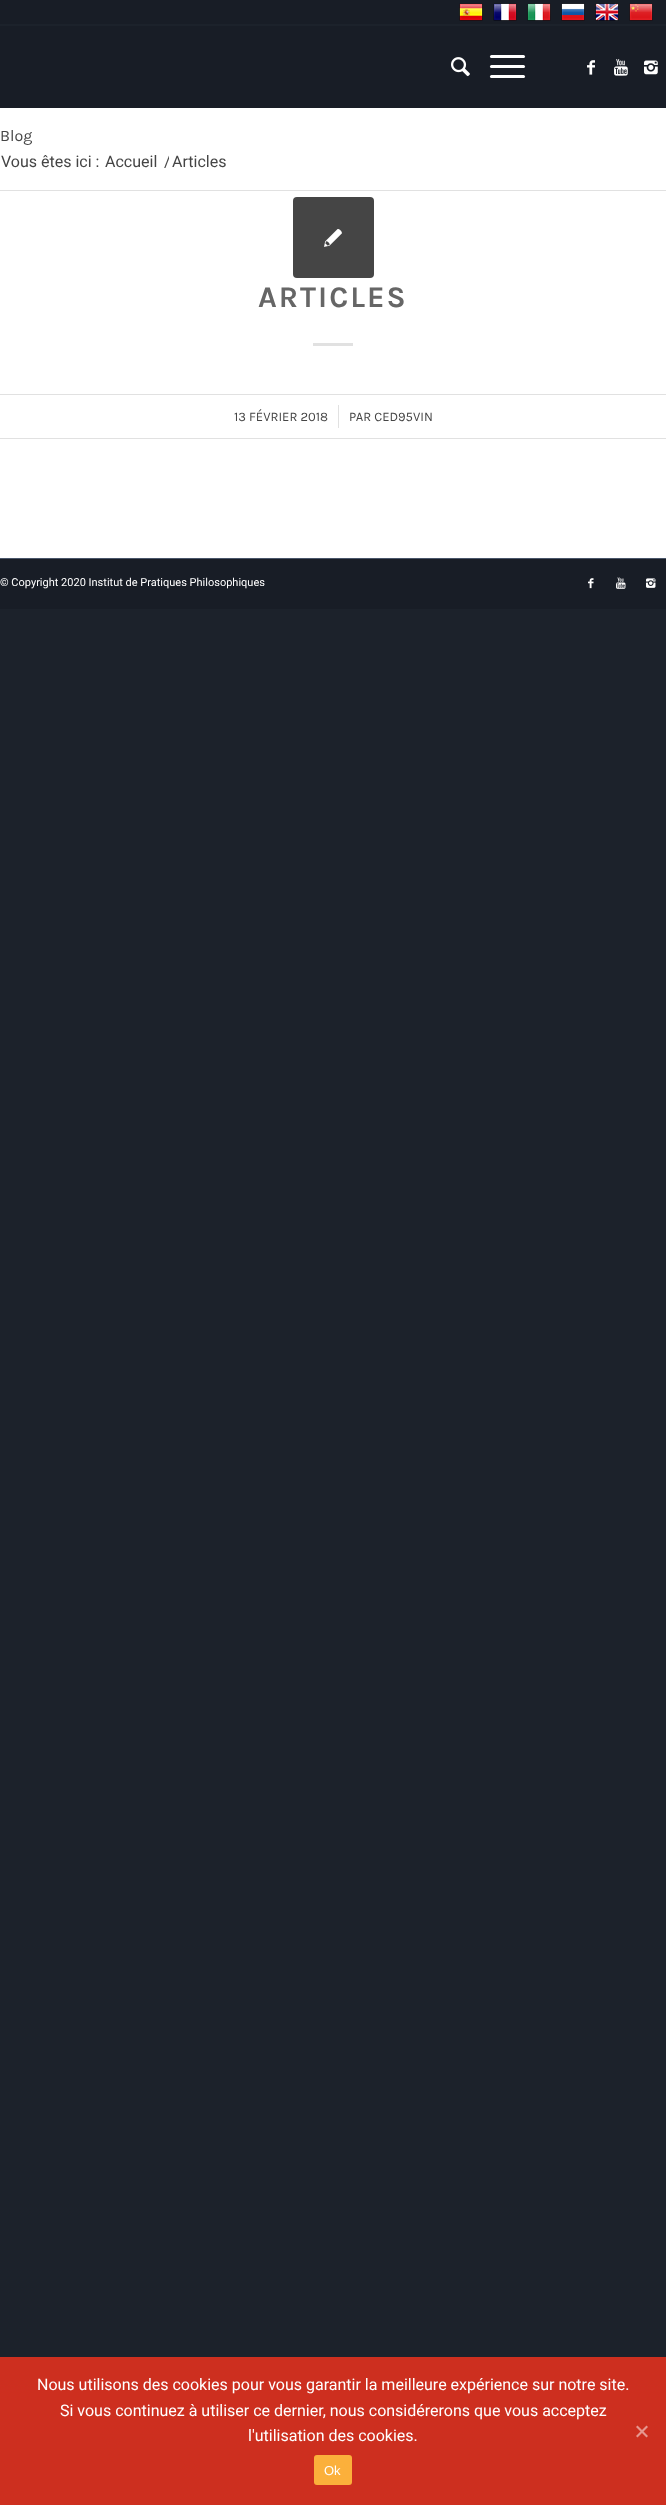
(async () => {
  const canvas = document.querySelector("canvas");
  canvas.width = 666;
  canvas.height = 2505;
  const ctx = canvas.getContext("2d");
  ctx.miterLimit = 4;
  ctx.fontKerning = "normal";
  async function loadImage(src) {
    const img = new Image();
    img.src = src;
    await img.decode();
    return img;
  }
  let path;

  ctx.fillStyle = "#1c222b";
  ctx.fillRect(0, 0, 666, 2505);
  ctx.fillStyle = "#181d26";
  ctx.fillRect(0, 0, 666, 24);
  ctx.drawImage(await loadImage("img/1.png"), 459, 3, 24, 18);
  ctx.drawImage(await loadImage("img/2.png"), 493, 3, 24, 18);
  ctx.drawImage(await loadImage("img/3.png"), 527, 3, 24, 18);
  ctx.drawImage(await loadImage("img/4.png"), 561, 3, 24, 18);
  ctx.drawImage(await loadImage("img/5.png"), 595, 3, 24, 18);
  ctx.drawImage(await loadImage("img/6.png"), 629, 3, 24, 18);
  ctx.fillRect(0, 26, 666, 82);
  ctx.drawImage(await loadImage("img/7.png"), 451, 57, 19, 20);
  ctx.fillStyle = "#ffffff";
  ctx.beginPath();
  ctx.roundRect(490, 65, 35, 3, 1.5);
  ctx.fill();
  ctx.beginPath();
  ctx.roundRect(490, 55, 35, 3, 1.5);
  ctx.fill();
  ctx.beginPath();
  ctx.roundRect(490, 75, 35, 3, 1.5);
  ctx.fill();
  ctx.drawImage(await loadImage("img/8.png"), 587, 60, 8, 15);
  ctx.drawImage(await loadImage("img/9.png"), 614, 59, 14, 17);
  ctx.drawImage(await loadImage("img/10.png"), 644, 60, 14, 15);
  ctx.fillRect(0, 108, 666, 450);
  ctx.fillStyle = "#e1e1e1";
  ctx.fillRect(0, 190, 666, 1);
  ctx.fillStyle = "#454545";
  ctx.beginPath();
  ctx.roundRect(293, 197, 81, 81, 4);
  ctx.fill();
  ctx.drawImage(await loadImage("img/11.png"), 324, 229, 18, 18);
  for (const [x, y, w, h, color] of [
    [313, 343, 40, 3, "#e1e1e1"],
    [0, 394, 666, 1, "#e1e1e1"],
    [0, 438, 666, 1, "#e1e1e1"],
    [338, 405, 1, 23, "#e1e1e1"],
    [0, 559, 666, 50, "#181d26"],
    [0, 558, 666, 1, "#495569"],
  ]) {
    ctx.fillStyle = color;
    ctx.fillRect(x, y, w, h);
  }
  ctx.drawImage(await loadImage("img/12.png"), 588, 578, 6, 11);
  ctx.drawImage(await loadImage("img/13.png"), 616, 577, 10, 12);
  ctx.drawImage(await loadImage("img/14.png"), 646, 578, 10, 10);
  ctx.fillStyle = "#cd2f1f";
  ctx.fillRect(0, 2357, 666, 148);
  ctx.fillStyle = "#e6978f";
  path = new Path2D("M646.5 2425.5L648 2427L637.5 2437.5L636 2436Z");
  ctx.fill(path);
  path = new Path2D("M636 2427L637.5 2425.5L648 2436L646.5 2437.5Z");
  ctx.fill(path);
  ctx.fillStyle = "#fbb03b";
  ctx.beginPath();
  ctx.roundRect(314, 2455, 38, 30, 3);
  ctx.fill();
  ctx.font = "16px Karla";
  ctx.fillStyle = "#454545";
  ctx.fillText("Blog", 0, 141);
  ctx.font = "16px Roboto";
  ctx.fillText("Vous êtes ici :", 1, 167);
  ctx.fillText("Accueil", 105, 167);
  ctx.save();
  ctx.beginPath();
  ctx.rect(161, 149, 8, 25);
  ctx.clip();
  ctx.fillText("/", 164, 167);
  ctx.restore();
  ctx.fillText("Articles", 172, 167);
  ctx.letterSpacing = "2px";
  ctx.font = "bold 30px Karla";
  ctx.fillStyle = "#666666";
  ctx.fillText("ARTICLES", 258, 307);
  ctx.letterSpacing = "0px";
  ctx.font = "13px Karla";
  ctx.fillStyle = "#454545";
  ctx.fillText("13 FÉVRIER 2018", 234, 421);
  ctx.fillText("PAR CED95VIN", 349, 421);
  ctx.font = "11px Roboto";
  ctx.fillStyle = "#ffffff";
  ctx.fillText("© Copyright 2020 Institut de Pratiques Philosophiques", 0, 586);
  ctx.font = "16px Roboto";
  for (const [text, x, y] of [
    ["Nous utilisons des cookies pour vous garantir la meilleure expérience sur notre site.", 37, 2390],
    ["Si vous continuez à utiliser ce dernier, nous considérerons que vous acceptez", 60, 2416],
    ["l'utilisation des cookies.", 248, 2441],
  ]) {
    ctx.fillText(text, x, y);
  }
  ctx.font = "13px Liberation Sans";
  ctx.fillText("Ok", 324, 2475);
})();
